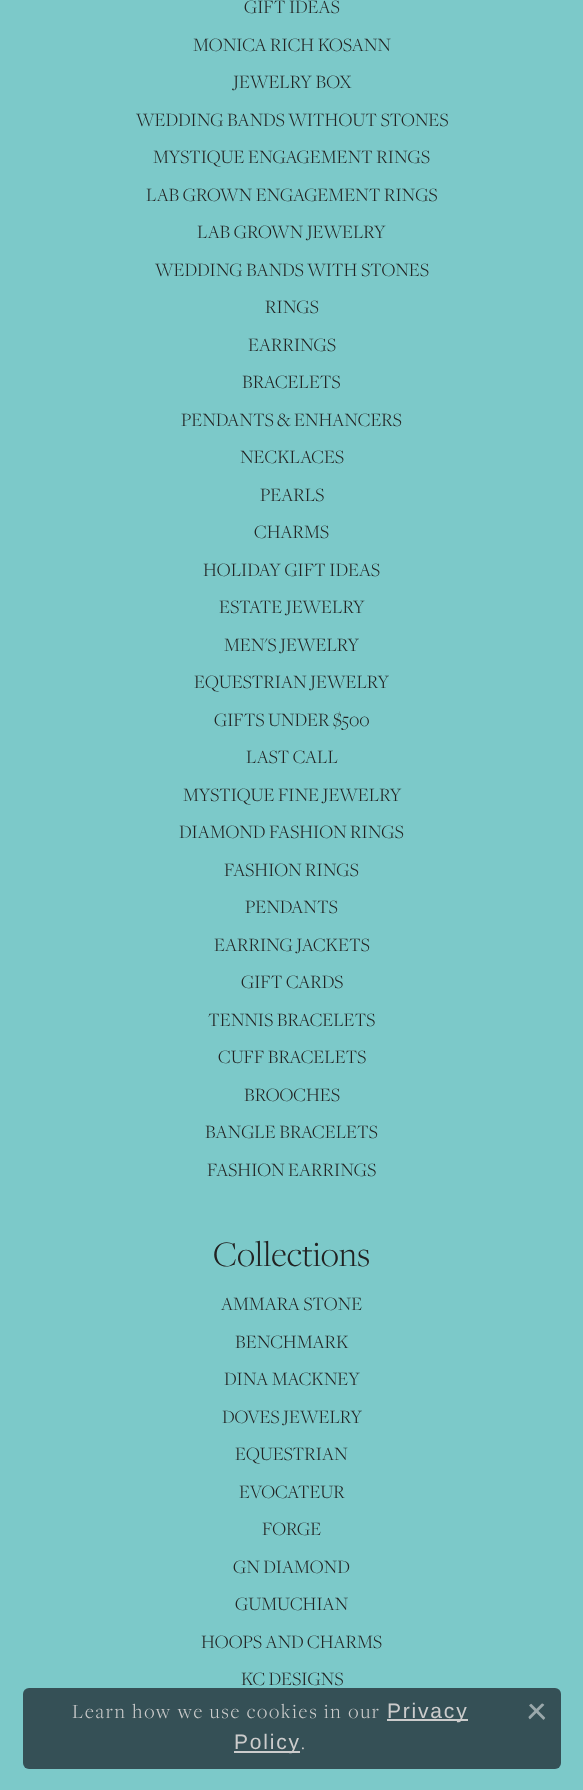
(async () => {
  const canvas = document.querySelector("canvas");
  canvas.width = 583;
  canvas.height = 1790;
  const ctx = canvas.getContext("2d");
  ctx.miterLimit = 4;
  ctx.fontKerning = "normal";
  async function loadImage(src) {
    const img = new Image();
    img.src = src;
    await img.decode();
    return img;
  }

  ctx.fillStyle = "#7cc9c9";
  ctx.fillRect(0, 0, 583, 1790);
  ctx.fillStyle = "rgba(46, 66, 73, 0.9)";
  ctx.beginPath();
  ctx.roundRect(23, 1688, 538, 81, 6);
  ctx.fill();
  ctx.fillStyle = "#cccccc";
  ctx.fillRect(387, 1719, 81, 2);
  ctx.fillRect(234, 1751, 66, 2);
  ctx.drawImage(await loadImage("img/1.png"), 528, 1703, 18, 17);
  ctx.font = "300 19.5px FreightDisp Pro";
  ctx.fillStyle = "#222222";
  for (const [text, x, y] of [
    ["GIFT IDEAS", 244, 13],
    ["MONICA RICH KOSANN", 193, 51],
    ["JEWELRY BOX", 233, 88],
    ["WEDDING BANDS WITHOUT STONES", 136, 126],
    ["MYSTIQUE ENGAGEMENT RINGS", 153, 163],
    ["LAB GROWN ENGAGEMENT RINGS", 146, 201],
    ["LAB GROWN JEWELRY", 197, 238],
    ["WEDDING BANDS WITH STONES", 155, 276],
    ["RINGS", 265, 313],
    ["EARRINGS", 248, 351],
    ["BRACELETS", 242, 388],
    ["PENDANTS & ENHANCERS", 181, 426],
    ["NECKLACES", 240, 463],
    ["PEARLS", 260, 501],
    ["CHARMS", 254, 538],
    ["HOLIDAY GIFT IDEAS", 203, 576],
    ["ESTATE JEWELRY", 219, 613],
    ["MEN'S JEWELRY", 224, 651],
    ["EQUESTRIAN JEWELRY", 194, 688],
    ["GIFTS UNDER $500", 214, 726],
    ["LAST CALL", 246, 763],
    ["MYSTIQUE FINE JEWELRY", 183, 801],
    ["DIAMOND FASHION RINGS", 179, 838],
    ["FASHION RINGS", 224, 876],
    ["PENDANTS", 245, 913],
    ["EARRING JACKETS", 214, 951],
    ["GIFT CARDS", 241, 988],
    ["TENNIS BRACELETS", 208, 1026],
    ["CUFF BRACELETS", 218, 1063],
    ["BROOCHES", 244, 1101],
    ["BANGLE BRACELETS", 205, 1138],
    ["FASHION EARRINGS", 207, 1176],
  ]) {
    ctx.fillText(text, x, y);
  }
  ctx.font = "300 37px FreightDisp Pro";
  ctx.fillText("Collections", 213, 1266);
  ctx.font = "300 19.5px FreightDisp Pro";
  for (const [text, x, y] of [
    ["AMMARA STONE", 221, 1310],
    ["BENCHMARK", 235, 1348],
    ["DINA MACKNEY", 224, 1385],
    ["DOVES JEWELRY", 222, 1423],
    ["EQUESTRIAN", 235, 1460],
    ["EVOCATEUR", 239, 1498],
    ["FORGE", 262, 1535],
    ["GN DIAMOND", 233, 1573],
    ["GUMUCHIAN", 235, 1610],
    ["HOOPS AND CHARMS", 201, 1648],
    ["KC DESIGNS", 241, 1685],
  ]) {
    ctx.fillText(text, x, y);
  }
  ctx.letterSpacing = "1.8px";
  ctx.font = "300 21px FreightDisp Pro";
  ctx.fillStyle = "#cccccc";
  ctx.fillText("Learn how we use cookies in our", 72, 1718);
  ctx.font = "21px Liberation Sans";
  ctx.fillText("Privacy", 387, 1718);
  ctx.fillText("Policy", 234, 1749);
  ctx.font = "300 21px FreightDisp Pro";
  ctx.fillText(".", 301, 1749);
})();
